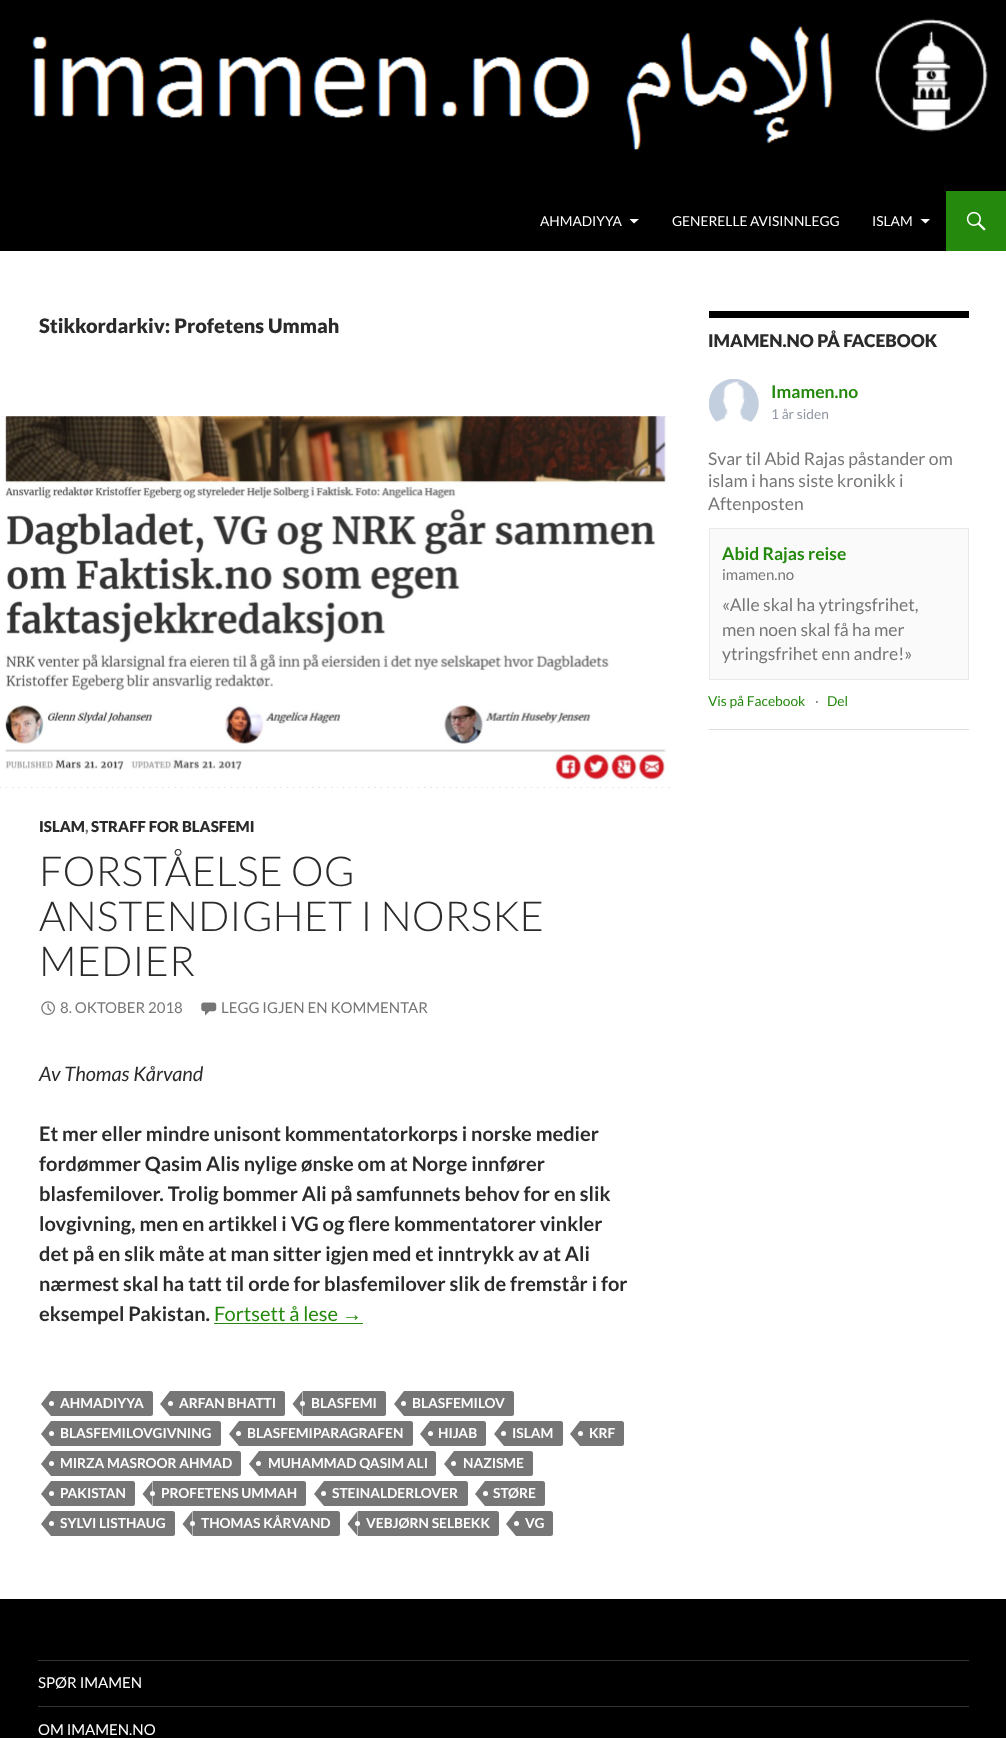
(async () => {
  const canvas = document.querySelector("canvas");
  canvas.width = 1006;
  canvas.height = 1738;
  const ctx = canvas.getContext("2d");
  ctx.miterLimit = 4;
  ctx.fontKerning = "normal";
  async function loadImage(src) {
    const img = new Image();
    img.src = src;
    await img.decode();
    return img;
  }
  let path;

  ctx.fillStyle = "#ffffff";
  ctx.fillRect(0, 0, 1006, 1738);
  ctx.drawImage(await loadImage("img/1.png"), 0, 0, 1006, 191);
  ctx.fillStyle = "#000000";
  ctx.fillRect(0, 191, 946, 60);
  ctx.fillStyle = "#ffffff";
  path = new Path2D("M629.5 219L634 223.5L639 219Z");
  ctx.fill(path);
  path = new Path2D("M920.5 219L925.5 223.5L930 219Z");
  ctx.fill(path);
  ctx.fillStyle = "#24890d";
  ctx.fillRect(946, 191, 60, 60);
  ctx.drawImage(await loadImage("img/2.png"), 966, 211, 20, 20);
  ctx.fillStyle = "#b2b2b2";
  ctx.fillRect(0, 416, 671, 372);
  ctx.drawImage(await loadImage("img/3.png"), 0, 416, 671, 372);
  ctx.drawImage(await loadImage("img/4.png"), 0, 416, 671, 372);
  ctx.drawImage(await loadImage("img/5.png"), 41, 1001, 14, 14);
  ctx.drawImage(await loadImage("img/6.png"), 201, 1002, 16, 14);
  ctx.fillStyle = "#24890d";
  ctx.fillRect(214, 1323, 149, 1);
  ctx.fillStyle = "#767676";
  ctx.beginPath();
  ctx.roundRect(51, 1391, 102, 25, [0, 2.5, 2.5, 0]);
  ctx.fill();
  path = new Path2D("M51 1391V1416L41 1404Z");
  ctx.fill(path);
  ctx.fillStyle = "#ffffff";
  ctx.beginPath();
  ctx.arc(51.5, 1403.5, 2.5, 0, Math.PI * 2);
  ctx.fill();
  ctx.fillStyle = "#767676";
  ctx.beginPath();
  ctx.roundRect(170, 1391, 115, 25, [0, 2.5, 2.5, 0]);
  ctx.fill();
  path = new Path2D("M170 1391V1416L160 1404Z");
  ctx.fill(path);
  ctx.fillStyle = "#ffffff";
  ctx.beginPath();
  ctx.arc(170.5, 1403.5, 2.5, 0, Math.PI * 2);
  ctx.fill();
  ctx.fillStyle = "#767676";
  ctx.beginPath();
  ctx.roundRect(303, 1391, 83, 25, [0, 2.5, 2.5, 0]);
  ctx.fill();
  path = new Path2D("M302.5 1391V1416L292.5 1404Z");
  ctx.fill(path);
  ctx.fillStyle = "#ffffff";
  ctx.beginPath();
  ctx.arc(302.5, 1403.5, 2.5, 0, Math.PI * 2);
  ctx.fill();
  ctx.fillStyle = "#767676";
  ctx.beginPath();
  ctx.roundRect(404, 1391, 110, 25, [0, 2.5, 2.5, 0]);
  ctx.fill();
  path = new Path2D("M404 1391V1416L394 1404Z");
  ctx.fill(path);
  ctx.fillStyle = "#ffffff";
  ctx.beginPath();
  ctx.arc(403.5, 1403.5, 2.5, 0, Math.PI * 2);
  ctx.fill();
  ctx.fillStyle = "#767676";
  ctx.beginPath();
  ctx.roundRect(51, 1421, 170, 25, [0, 2.5, 2.5, 0]);
  ctx.fill();
  path = new Path2D("M51 1421V1446L41 1434Z");
  ctx.fill(path);
  ctx.fillStyle = "#ffffff";
  ctx.beginPath();
  ctx.arc(51.5, 1433.5, 2.5, 0, Math.PI * 2);
  ctx.fill();
  ctx.fillStyle = "#767676";
  ctx.beginPath();
  ctx.roundRect(239, 1421, 174, 25, [0, 2.5, 2.5, 0]);
  ctx.fill();
  path = new Path2D("M239 1421V1446L229 1434Z");
  ctx.fill(path);
  ctx.fillStyle = "#ffffff";
  ctx.beginPath();
  ctx.arc(238.5, 1433.5, 2.5, 0, Math.PI * 2);
  ctx.fill();
  ctx.fillStyle = "#767676";
  ctx.beginPath();
  ctx.roundRect(430, 1421, 56, 25, [0, 2.5, 2.5, 0]);
  ctx.fill();
  path = new Path2D("M430 1421V1446L420 1434Z");
  ctx.fill(path);
  ctx.fillStyle = "#ffffff";
  ctx.beginPath();
  ctx.arc(430.5, 1433.5, 2.5, 0, Math.PI * 2);
  ctx.fill();
  ctx.fillStyle = "#767676";
  ctx.beginPath();
  ctx.roundRect(504, 1421, 59, 25, [0, 2.5, 2.5, 0]);
  ctx.fill();
  path = new Path2D("M504 1421V1446L494 1434Z");
  ctx.fill(path);
  ctx.fillStyle = "#ffffff";
  ctx.beginPath();
  ctx.arc(503.5, 1433.5, 2.5, 0, Math.PI * 2);
  ctx.fill();
  ctx.fillStyle = "#767676";
  ctx.beginPath();
  ctx.roundRect(580, 1421, 44, 25, [0, 2.5, 2.5, 0]);
  ctx.fill();
  path = new Path2D("M580 1421V1446L570 1434Z");
  ctx.fill(path);
  ctx.fillStyle = "#ffffff";
  ctx.beginPath();
  ctx.arc(580.5, 1433.5, 2.5, 0, Math.PI * 2);
  ctx.fill();
  ctx.fillStyle = "#767676";
  ctx.beginPath();
  ctx.roundRect(51, 1451, 190, 25, [0, 2.5, 2.5, 0]);
  ctx.fill();
  path = new Path2D("M51 1451V1476L41 1464Z");
  ctx.fill(path);
  ctx.fillStyle = "#ffffff";
  ctx.beginPath();
  ctx.arc(51.5, 1463.5, 2.5, 0, Math.PI * 2);
  ctx.fill();
  ctx.fillStyle = "#767676";
  ctx.beginPath();
  ctx.roundRect(259, 1451, 177, 25, [0, 2.5, 2.5, 0]);
  ctx.fill();
  path = new Path2D("M259 1451V1476L249 1464Z");
  ctx.fill(path);
  ctx.fillStyle = "#ffffff";
  ctx.beginPath();
  ctx.arc(258.5, 1463.5, 2.5, 0, Math.PI * 2);
  ctx.fill();
  ctx.fillStyle = "#767676";
  ctx.beginPath();
  ctx.roundRect(454, 1451, 79, 25, [0, 2.5, 2.5, 0]);
  ctx.fill();
  path = new Path2D("M454 1451V1476L444 1464Z");
  ctx.fill(path);
  ctx.fillStyle = "#ffffff";
  ctx.beginPath();
  ctx.arc(453.5, 1463.5, 2.5, 0, Math.PI * 2);
  ctx.fill();
  ctx.fillStyle = "#767676";
  ctx.beginPath();
  ctx.roundRect(51, 1481, 84, 25, [0, 2.5, 2.5, 0]);
  ctx.fill();
  path = new Path2D("M51 1481V1506L41 1494Z");
  ctx.fill(path);
  ctx.fillStyle = "#ffffff";
  ctx.beginPath();
  ctx.arc(51.5, 1493.5, 2.5, 0, Math.PI * 2);
  ctx.fill();
  ctx.fillStyle = "#767676";
  ctx.beginPath();
  ctx.roundRect(153, 1481, 153, 25, [0, 2.5, 2.5, 0]);
  ctx.fill();
  path = new Path2D("M152.5 1481V1506L142.5 1494Z");
  ctx.fill(path);
  ctx.fillStyle = "#ffffff";
  ctx.beginPath();
  ctx.arc(152.5, 1493.5, 2.5, 0, Math.PI * 2);
  ctx.fill();
  ctx.fillStyle = "#767676";
  ctx.beginPath();
  ctx.roundRect(324, 1481, 144, 25, [0, 2.5, 2.5, 0]);
  ctx.fill();
  path = new Path2D("M324 1481V1506L314 1494Z");
  ctx.fill(path);
  ctx.fillStyle = "#ffffff";
  ctx.beginPath();
  ctx.arc(323.5, 1493.5, 2.5, 0, Math.PI * 2);
  ctx.fill();
  ctx.fillStyle = "#767676";
  ctx.beginPath();
  ctx.roundRect(485, 1481, 60, 25, [0, 2.5, 2.5, 0]);
  ctx.fill();
  path = new Path2D("M485 1481V1506L475 1494Z");
  ctx.fill(path);
  ctx.fillStyle = "#ffffff";
  ctx.beginPath();
  ctx.arc(485.5, 1493.5, 2.5, 0, Math.PI * 2);
  ctx.fill();
  ctx.fillStyle = "#767676";
  ctx.beginPath();
  ctx.roundRect(51, 1511, 124, 25, [0, 2.5, 2.5, 0]);
  ctx.fill();
  path = new Path2D("M51 1511V1536L41 1524Z");
  ctx.fill(path);
  ctx.fillStyle = "#ffffff";
  ctx.beginPath();
  ctx.arc(51.5, 1523.5, 2.5, 0, Math.PI * 2);
  ctx.fill();
  ctx.fillStyle = "#767676";
  ctx.beginPath();
  ctx.roundRect(193, 1511, 147, 25, [0, 2.5, 2.5, 0]);
  ctx.fill();
  path = new Path2D("M192.5 1511V1536L182.5 1524Z");
  ctx.fill(path);
  ctx.fillStyle = "#ffffff";
  ctx.beginPath();
  ctx.arc(192.5, 1523.5, 2.5, 0, Math.PI * 2);
  ctx.fill();
  ctx.fillStyle = "#767676";
  ctx.beginPath();
  ctx.roundRect(358, 1511, 141, 25, [0, 2.5, 2.5, 0]);
  ctx.fill();
  path = new Path2D("M357.5 1511V1536L347.5 1524Z");
  ctx.fill(path);
  ctx.fillStyle = "#ffffff";
  ctx.beginPath();
  ctx.arc(357.5, 1523.5, 2.5, 0, Math.PI * 2);
  ctx.fill();
  ctx.fillStyle = "#767676";
  ctx.beginPath();
  ctx.roundRect(516, 1511, 37, 25, [0, 2.5, 2.5, 0]);
  ctx.fill();
  path = new Path2D("M516 1511V1536L506 1524Z");
  ctx.fill(path);
  ctx.fillStyle = "#ffffff";
  ctx.beginPath();
  ctx.arc(516.5, 1523.5, 2.5, 0, Math.PI * 2);
  ctx.fill();
  ctx.fillStyle = "#000000";
  ctx.fillRect(709, 311, 260, 7);
  ctx.fillStyle = "#dddddd";
  ctx.fillRect(709, 729, 260, 1);
  ctx.drawImage(await loadImage("img/7.png"), 708, 379, 51, 43);
  ctx.fillStyle = "#fafafa";
  ctx.beginPath();
  ctx.rect(709.5, 528.5, 259, 151);
  ctx.fill();
  ctx.strokeStyle = "#e9e9e9";
  ctx.stroke();
  for (const [x, y, w, h, color] of [
    [0, 1599, 1006, 139, "#000000"],
    [38, 1660, 931, 1, "#333333"],
    [38, 1706, 931, 1, "#333333"],
  ]) {
    ctx.fillStyle = color;
    ctx.fillRect(x, y, w, h);
  }
  ctx.font = "13.75px Lato";
  ctx.fillStyle = "#ffffff";
  for (const [text, x, y] of [
    ["AHMADIYYA", 540, 226],
    ["GENERELLE AVISINNLEGG", 672, 226],
    ["ISLAM", 872, 226],
  ]) {
    ctx.fillText(text, x, y);
  }
  ctx.font = "900 20px Lato";
  ctx.fillStyle = "#2b2b2b";
  ctx.fillText("Stikkordarkiv: Profetens Ummah", 39, 333);
  ctx.font = "900 15px Lato";
  ctx.fillText("ISLAM", 39, 832);
  ctx.fillStyle = "#767676";
  ctx.fillText(",", 85, 832);
  ctx.fillStyle = "#2b2b2b";
  ctx.fillText("STRAFF FOR BLASFEMI", 91, 832);
  ctx.font = "300 41.25px Lato";
  for (const [text, x, y] of [
    ["FORSTÅELSE OG", 39, 886],
    ["ANSTENDIGHET I NORSKE", 39, 931],
    ["MEDIER", 39, 976],
  ]) {
    ctx.fillText(text, x, y);
  }
  ctx.font = "15px Lato";
  ctx.fillStyle = "#767676";
  ctx.fillText("8. OKTOBER 2018", 60, 1013);
  ctx.fillText("LEGG IGJEN EN KOMMENTAR", 221, 1013);
  ctx.font = "italic 20px Lato";
  ctx.fillStyle = "#2b2b2b";
  ctx.fillText("Av Thomas Kårvand", 39, 1081);
  ctx.font = "bold 20px Lato";
  for (const [text, x, y] of [
    ["Et mer eller mindre unisont kommentatorkorps i norske medier", 39, 1141],
    ["fordømmer Qasim Alis nylige ønske om at Norge innfører", 39, 1171],
    ["blasfemilover. Trolig bommer Ali på samfunnets behov for en slik", 39, 1201],
    ["lovgivning, men en artikkel i VG og flere kommentatorer vinkler", 39, 1231],
    ["det på en slik måte at man sitter igjen med et inntrykk av at Ali", 39, 1261],
    ["nærmest skal ha tatt til orde for blasfemilover slik de fremstår i for", 39, 1291],
    ["eksempel Pakistan.", 39, 1321],
  ]) {
    ctx.fillText(text, x, y);
  }
  ctx.font = "20px Lato";
  ctx.fillStyle = "#24890d";
  ctx.fillText("Fortsett å lese", 214, 1321);
  ctx.font = "20px Liberation Sans";
  ctx.fillText("→", 342, 1321);
  ctx.font = "bold 13.75px Lato";
  ctx.fillStyle = "#ffffff";
  for (const [text, x, y] of [
    ["AHMADIYYA", 60, 1408],
    ["ARFAN BHATTI", 179, 1408],
    ["BLASFEMI", 311, 1408],
    ["BLASFEMILOV", 412, 1408],
    ["BLASFEMILOVGIVNING", 60, 1438],
    ["BLASFEMIPARAGRAFEN", 247, 1438],
    ["HIJAB", 438, 1438],
    ["ISLAM", 512, 1438],
    ["KRF", 589, 1438],
    ["MIRZA MASROOR AHMAD", 60, 1468],
    ["MUHAMMAD QASIM ALI", 268, 1468],
    ["NAZISME", 463, 1468],
    ["PAKISTAN", 60, 1498],
    ["PROFETENS UMMAH", 161, 1498],
    ["STEINALDERLOVER", 332, 1498],
    ["STØRE", 493, 1498],
    ["SYLVI LISTHAUG", 60, 1528],
    ["THOMAS KÅRVAND", 201, 1528],
    ["VEBJØRN SELBEKK", 366, 1528],
    ["VG", 525, 1528],
  ]) {
    ctx.fillText(text, x, y);
  }
  ctx.font = "900 17.5px Lato";
  ctx.fillStyle = "#2b2b2b";
  ctx.fillText("IMAMEN.NO PÅ FACEBOOK", 708, 347);
  ctx.font = "bold 17.5px Lato";
  ctx.fillStyle = "#24890d";
  ctx.fillText("Imamen.no", 771, 398);
  ctx.font = "13.75px Lato";
  ctx.fillStyle = "#9197a3";
  ctx.fillText("1 år siden", 771, 419);
  ctx.font = "17.5px Lato";
  ctx.fillStyle = "#767676";
  for (const [text, x, y] of [
    ["Svar til Abid Rajas påstander om", 708, 465],
    ["islam i hans siste kronikk i", 708, 487],
    ["Aftenposten", 708, 510],
  ]) {
    ctx.fillText(text, x, y);
  }
  ctx.font = "bold 17.5px Lato";
  ctx.fillStyle = "#24890d";
  ctx.fillText("Abid Rajas reise", 722, 560);
  ctx.font = "15px Lato";
  ctx.fillStyle = "#767676";
  ctx.fillText("imamen.no", 722, 580);
  ctx.font = "17.5px Lato";
  for (const [text, x, y] of [
    ["«Alle skal ha ytringsfrihet,", 722, 611],
    ["men noen skal få ha mer", 722, 636],
    ["ytringsfrihet enn andre!»", 722, 660],
  ]) {
    ctx.fillText(text, x, y);
  }
  ctx.font = "13.75px Lato";
  ctx.fillStyle = "#24890d";
  ctx.fillText("Vis på Facebook", 708, 706);
  ctx.fillStyle = "#767676";
  ctx.fillText("·", 815, 706);
  ctx.fillStyle = "#24890d";
  ctx.fillText("Del", 827, 706);
  ctx.font = "15px Lato";
  ctx.fillStyle = "#ffffff";
  ctx.fillText("SPØR IMAMEN", 38, 1688);
  ctx.fillText("OM IMAMEN.NO", 38, 1735);
})();
